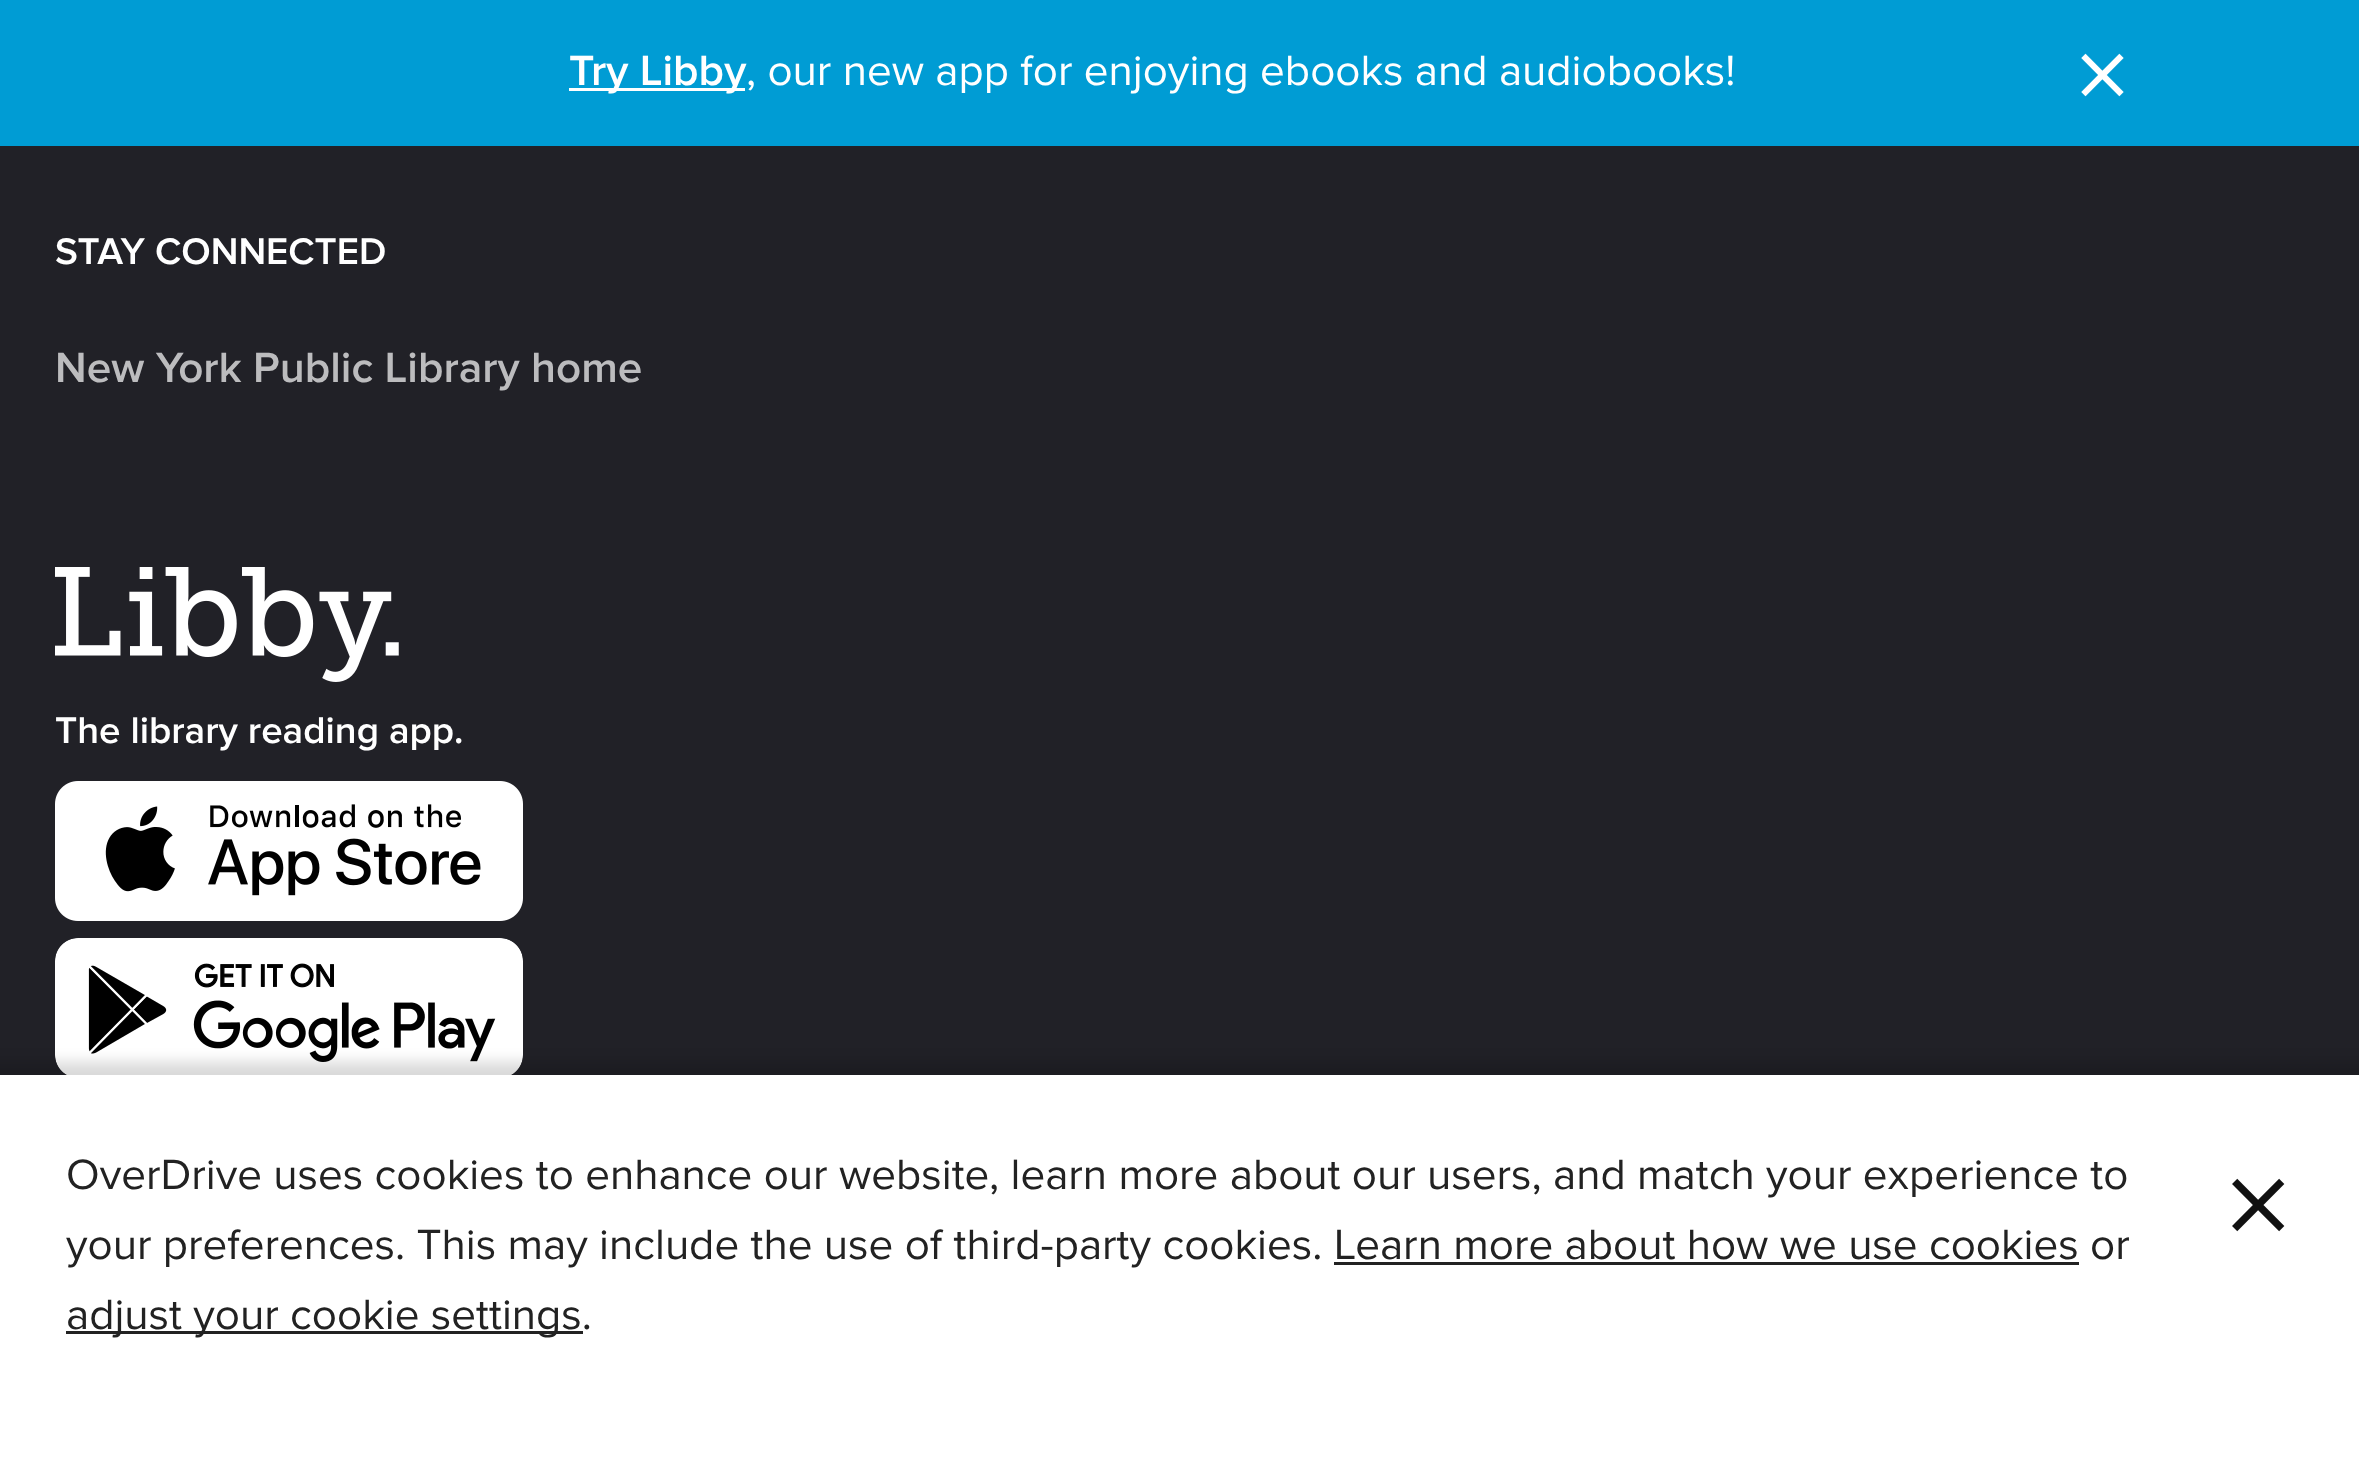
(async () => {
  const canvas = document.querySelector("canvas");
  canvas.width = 2359;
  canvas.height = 1472;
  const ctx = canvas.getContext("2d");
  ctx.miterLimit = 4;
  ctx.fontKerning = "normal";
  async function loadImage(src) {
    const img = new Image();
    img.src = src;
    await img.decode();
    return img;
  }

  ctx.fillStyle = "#212127";
  ctx.fillRect(0, 0, 2359, 1472);
  ctx.fillStyle = "#009cd4";
  ctx.fillRect(0, 0, 2359, 146);
  ctx.fillStyle = "#ffffff";
  ctx.fillRect(569, 88, 176, 3);
  ctx.drawImage(await loadImage("img/1.png"), 55, 567, 344, 115);
  ctx.drawImage(await loadImage("img/2.png"), 55, 781, 468, 140);
  ctx.drawImage(await loadImage("img/3.png"), 55, 938, 468, 137);
  ctx.fillStyle = "rgba(0, 0, 0, 0.15)";
  ctx.filter = "blur(7px)";
  ctx.beginPath();
  ctx.rect(-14, 1062, 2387, 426);
  ctx.fill();
  ctx.filter = "none";
  for (const [x, y, w, h, color] of [
    [0, 1075, 2359, 397, "#ffffff"],
    [1334, 1262, 745, 3, "#222222"],
    [66, 1331, 517, 3, "#222222"],
  ]) {
    ctx.fillStyle = color;
    ctx.fillRect(x, y, w, h);
  }
  ctx.font = "600 44px Proxima Nova";
  ctx.fillStyle = "#ffffff";
  ctx.fillText("Try Libby", 569, 85);
  ctx.font = "44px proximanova";
  ctx.fillText(", our new app for enjoying ebooks and audiobooks!", 746, 85);
  ctx.font = "114px proximanova";
  ctx.fillText("×", 2074, 113);
  ctx.font = "600 38.5px Proxima Nova";
  ctx.fillText("STAY CONNECTED", 55, 264);
  ctx.font = "600 44px Proxima Nova";
  ctx.fillStyle = "#bcbcbe";
  ctx.fillText("New York Public Library home", 55, 382);
  ctx.font = "600 38.5px Proxima Nova";
  ctx.fillStyle = "#ffffff";
  ctx.fillText("The library reading app.", 55, 743);
  ctx.font = "44px proximanova";
  ctx.fillStyle = "#222222";
  for (const [text, x, y] of [
    ["OverDrive uses cookies to enhance our website, learn more about our users, and match your experience to", 66, 1189],
    ["your preferences. This may include the use of third-party cookies. Learn more about how we use cookies or", 66, 1259],
    ["adjust your cookie settings.", 66, 1329],
  ]) {
    ctx.fillText(text, x, y);
  }
  ctx.font = "141px proximanova";
  ctx.fillStyle = "#111111";
  ctx.fillText("×", 2223, 1252);
})();
